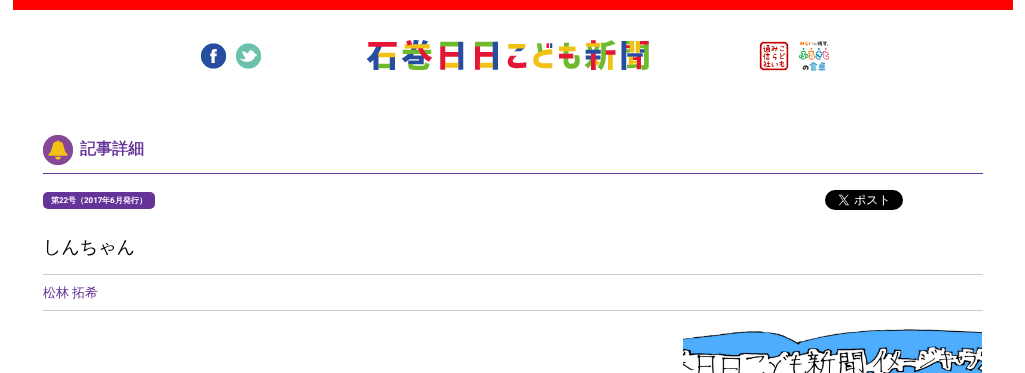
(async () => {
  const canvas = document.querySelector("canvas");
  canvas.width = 1025;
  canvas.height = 373;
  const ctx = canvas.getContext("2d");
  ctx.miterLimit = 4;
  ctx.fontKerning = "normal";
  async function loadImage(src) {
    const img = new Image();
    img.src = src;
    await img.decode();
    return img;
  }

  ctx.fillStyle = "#ffffff";
  ctx.fillRect(0, 0, 1025, 373);
  ctx.fillStyle = "#ff0000";
  ctx.fillRect(13, 0, 1000, 10);
  ctx.drawImage(await loadImage("img/1.png"), 201, 43, 25, 26);
  ctx.drawImage(await loadImage("img/2.png"), 236, 43, 25, 26);
  ctx.drawImage(await loadImage("img/3.png"), 366, 40, 283, 31);
  ctx.drawImage(await loadImage("img/4.png"), 759, 41, 30, 30);
  ctx.drawImage(await loadImage("img/5.png"), 799, 41, 30, 30);
  ctx.fillStyle = "#663399";
  ctx.fillRect(43, 173, 940, 1);
  ctx.drawImage(await loadImage("img/6.png"), 43, 135, 30, 30);
  ctx.beginPath();
  ctx.roundRect(43, 192, 112, 17, 5);
  ctx.fill();
  ctx.drawImage(await loadImage("img/7.png"), 825, 190, 78, 20);
  ctx.fillStyle = "#cccccc";
  ctx.fillRect(43, 274, 940, 1);
  ctx.fillRect(43, 310, 940, 1);
  ctx.drawImage(await loadImage("img/8.png"), 683, 329, 299, 44);
  ctx.font = "bold 16px WenQuanYi Zen Hei";
  ctx.fillStyle = "#663399";
  ctx.fillText("記事詳細", 80, 154);
  ctx.font = "bold 8px WenQuanYi Zen Hei";
  ctx.fillStyle = "#ffffff";
  ctx.fillText("第", 51, 203);
  ctx.font = "bold 8px Roboto";
  ctx.fillText("22", 59, 203);
  ctx.font = "bold 8px WenQuanYi Zen Hei";
  ctx.fillText("号（", 68, 203);
  ctx.font = "bold 8px Roboto";
  ctx.fillText("2017", 84, 203);
  ctx.font = "bold 8px WenQuanYi Zen Hei";
  ctx.fillText("年", 102, 203);
  ctx.font = "bold 8px Roboto";
  ctx.fillText("6", 110, 203);
  ctx.font = "bold 8px WenQuanYi Zen Hei";
  ctx.fillText("月発行）", 115, 203);
  ctx.font = "500 18px WenQuanYi Zen Hei";
  ctx.fillStyle = "#000000";
  ctx.fillText("しんちゃん", 43, 253);
  ctx.wordSpacing = "-1px";
  ctx.font = "500 13px WenQuanYi Zen Hei";
  ctx.fillStyle = "#663399";
  ctx.fillText("松林 拓希", 43, 297);
})();
